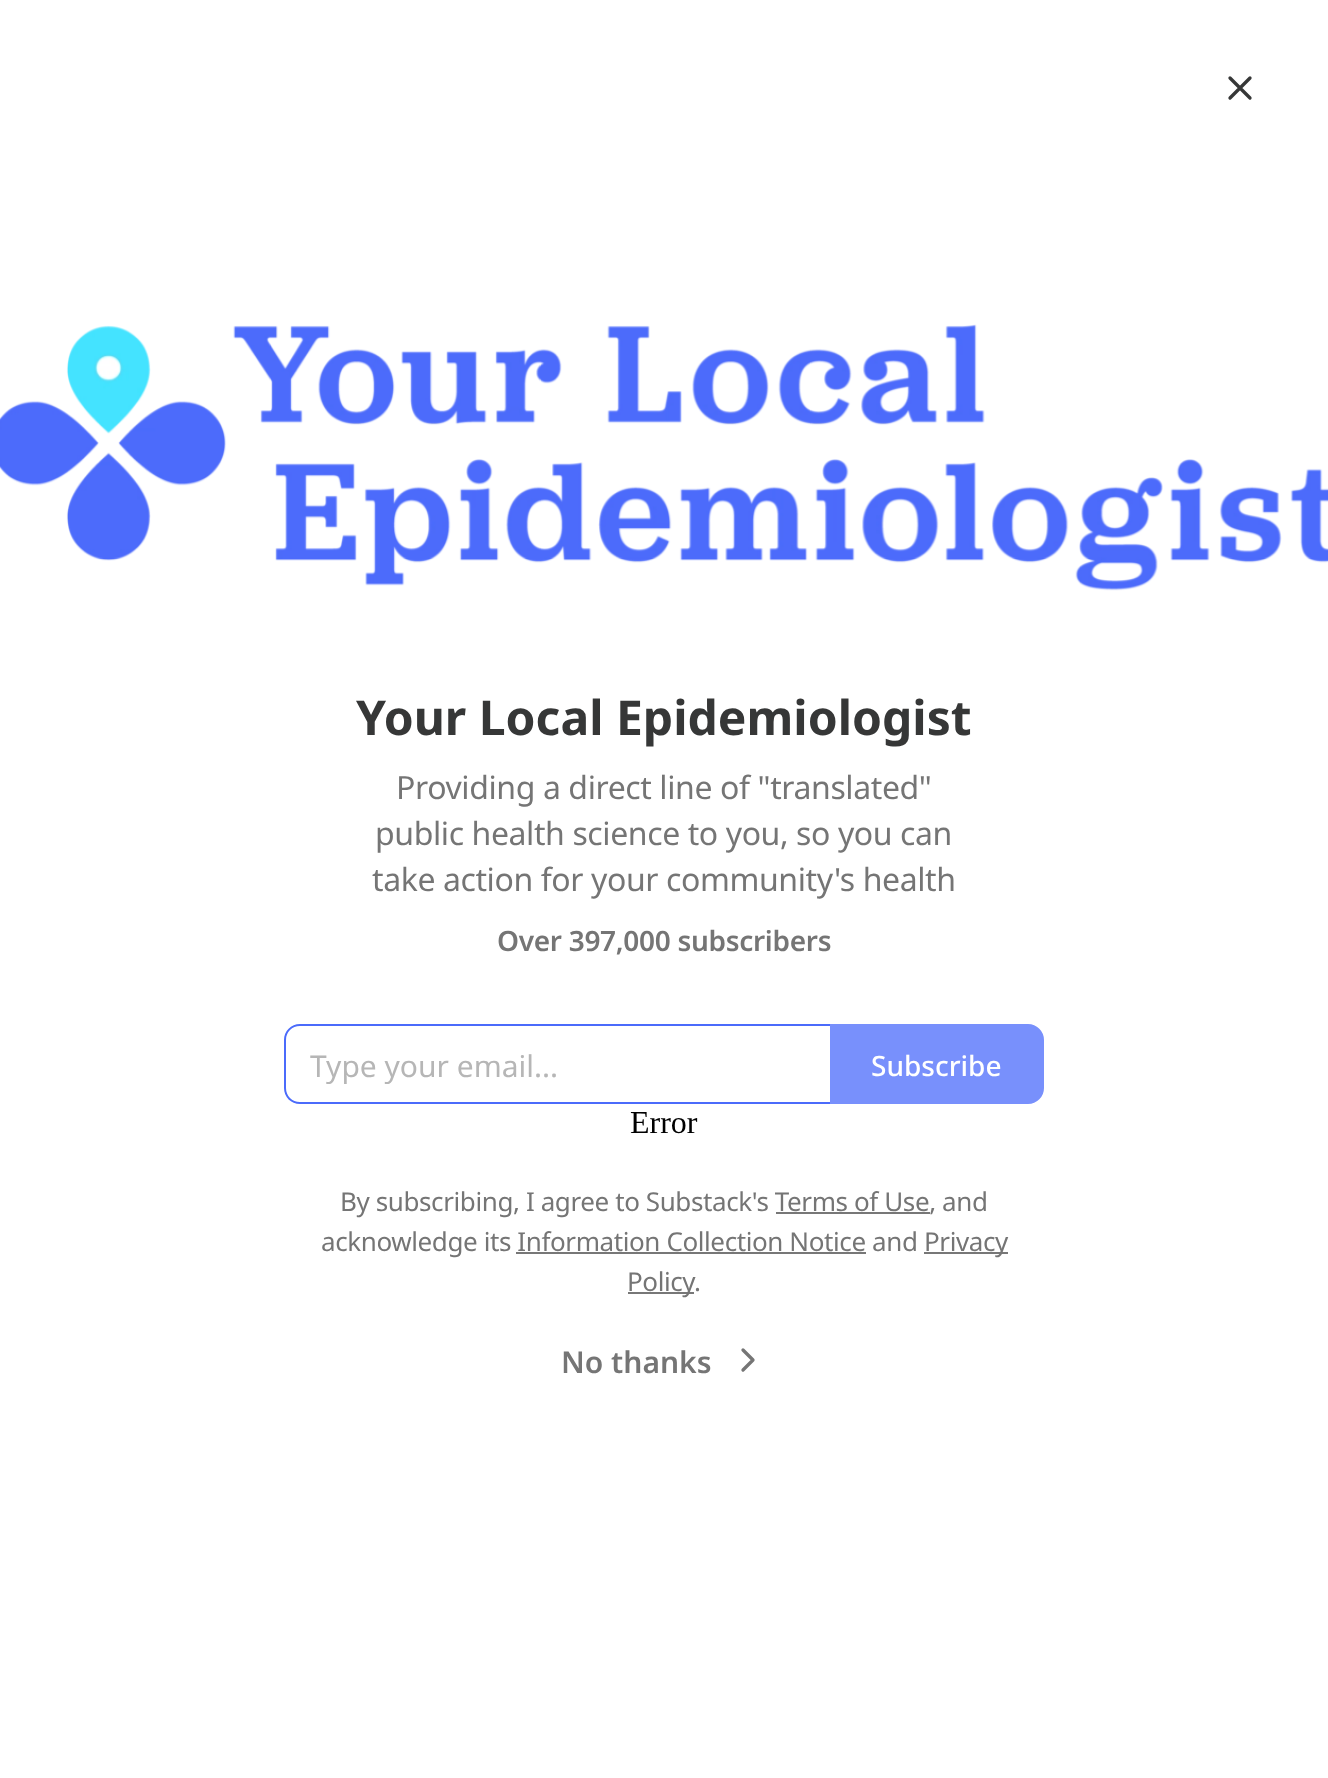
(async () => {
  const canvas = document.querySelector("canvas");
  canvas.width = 1328;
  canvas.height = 1778;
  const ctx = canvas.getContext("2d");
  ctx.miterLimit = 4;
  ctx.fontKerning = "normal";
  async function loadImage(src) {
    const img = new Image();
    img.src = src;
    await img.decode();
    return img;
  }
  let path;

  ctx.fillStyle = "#ffffff";
  ctx.fillRect(0, 0, 1328, 1778);
  path = new Path2D("M1250 78L1230 98M1230 78L1250 98");
  ctx.strokeStyle = "#363737";
  ctx.lineWidth = 3.3;
  ctx.lineCap = "round";
  ctx.lineJoin = "round";
  ctx.stroke(path);
  ctx.drawImage(await loadImage("img/1.png"), 0, 324, 1328, 267);
  ctx.fillStyle = "#4b6bfb";
  path = new Path2D("M300 1024H830V1104H300C291 1104 284 1097 284 1088V1040C284 1031 291 1024 300 1024ZM300 1026H830V1102H300C292 1102 286 1096 286 1088V1040C286 1032 292 1026 300 1026Z");
  ctx.fill(path, "evenodd");
  ctx.fillStyle = "#7890fc";
  ctx.beginPath();
  ctx.roundRect(831, 1025, 212, 78, [0, 15, 15, 0]);
  ctx.fill();
  ctx.strokeStyle = "#7890fc";
  ctx.lineWidth = 2;
  ctx.lineJoin = "miter";
  ctx.stroke();
  ctx.fillStyle = "#777777";
  ctx.fillRect(924, 1252, 84, 2);
  ctx.fillRect(628, 1292, 66, 2);
  path = new Path2D("M743 1370L753 1360L743 1350");
  ctx.strokeStyle = "#757575";
  ctx.lineWidth = 3.3;
  ctx.lineJoin = "round";
  ctx.stroke(path);
  ctx.font = "bold 48px Noto Sans";
  ctx.fillStyle = "#363737";
  ctx.fillText("Your Local Epidemiologist", 356, 735);
  ctx.letterSpacing = "-0.4px";
  ctx.font = "32px Noto Sans";
  ctx.fillStyle = "#757575";
  for (const [text, x, y] of [
    ["Providing a direct line of \"translated\"", 396, 799],
    ["public health science to you, so you can", 375, 845],
    ["take action for your community's health", 372, 891],
  ]) {
    ctx.fillText(text, x, y);
  }
  ctx.letterSpacing = "-0.3px";
  ctx.font = "600 28px Noto Sans";
  ctx.fillText("Over 397,000 subscribers", 497, 951);
  ctx.save();
  ctx.beginPath();
  ctx.rect(310, 1044, 496, 40);
  ctx.clip();
  ctx.letterSpacing = "0px";
  ctx.font = "30px Noto Sans";
  ctx.fillStyle = "#b6b6b6";
  ctx.fillText("Type your email...", 310, 1077);
  ctx.restore();
  ctx.letterSpacing = "0px";
  ctx.font = "500 28px Noto Sans";
  ctx.fillStyle = "#ffffff";
  ctx.fillText("Subscribe", 871, 1076);
  ctx.font = "32px Liberation Serif";
  ctx.fillStyle = "#000000";
  ctx.fillText("Error", 630, 1133);
  ctx.letterSpacing = "-0.4px";
  ctx.font = "26px Noto Sans";
  ctx.fillStyle = "#757575";
  ctx.fillText("By subscribing, I agree to Substack's Terms of Use, and", 340, 1211);
  ctx.fillStyle = "#777777";
  ctx.fillRect(776, 1212, 154, 2);
  ctx.fillStyle = "#757575";
  ctx.fillText("acknowledge its Information Collection Notice and", 321, 1251);
  ctx.fillText("Privacy", 924, 1251);
  ctx.fillStyle = "#777777";
  ctx.fillRect(516, 1252, 350, 2);
  ctx.fillStyle = "#757575";
  ctx.fillText("Policy", 627, 1291);
  ctx.fillText(".", 694, 1291);
  ctx.letterSpacing = "0px";
  ctx.font = "600 30px Noto Sans";
  ctx.fillText("No thanks", 561, 1373);
})();
